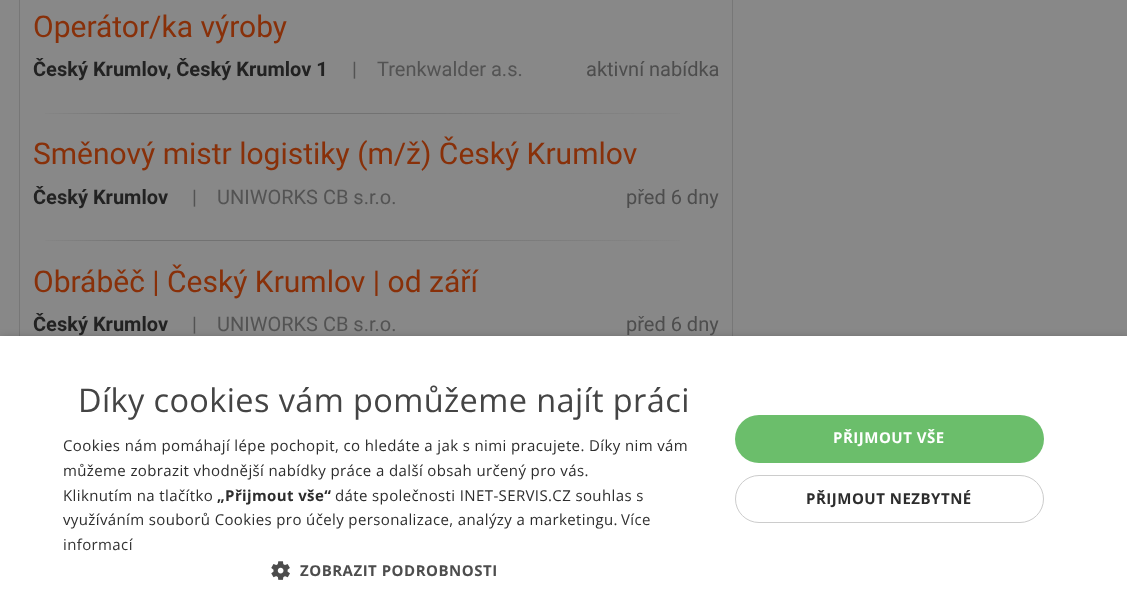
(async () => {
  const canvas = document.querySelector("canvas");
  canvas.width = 1127;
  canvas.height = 601;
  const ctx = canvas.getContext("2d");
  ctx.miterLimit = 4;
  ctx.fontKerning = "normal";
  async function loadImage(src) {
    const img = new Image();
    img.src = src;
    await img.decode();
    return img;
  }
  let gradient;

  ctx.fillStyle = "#888888";
  ctx.fillRect(0, 0, 1127, 601);
  ctx.strokeStyle = "#777777";
  ctx.strokeRect(19.5, -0.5, 713, 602);
  gradient = ctx.createLinearGradient(33, 113, 719, 113);
  gradient.addColorStop(0, "#888888");
  gradient.addColorStop(0.15, "#727272");
  gradient.addColorStop(0.5, "#727272");
  gradient.addColorStop(1, "#888888");
  ctx.fillStyle = gradient;
  ctx.fillRect(45, 113, 635, 1);
  gradient = ctx.createLinearGradient(33, 241, 719, 241);
  gradient.addColorStop(0, "#888888");
  gradient.addColorStop(0.15, "#727272");
  gradient.addColorStop(0.5, "#727272");
  gradient.addColorStop(1, "#888888");
  ctx.fillStyle = gradient;
  ctx.fillRect(45, 240, 635, 1);
  ctx.fillStyle = "rgba(0, 0, 0, 0.35)";
  ctx.filter = "blur(5px)";
  ctx.beginPath();
  ctx.rect(1, 339, 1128, 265);
  ctx.fill();
  ctx.filter = "none";
  ctx.fillStyle = "#ffffff";
  ctx.fillRect(0, 336, 1127, 265);
  ctx.drawImage(await loadImage("img/1.png"), 271, 561, 19, 19);
  ctx.fillStyle = "#6bbe6b";
  ctx.beginPath();
  ctx.roundRect(735, 415, 309, 48, 24);
  ctx.fill();
  ctx.beginPath();
  ctx.roundRect(735.5, 475.5, 308, 47, 23.5);
  ctx.strokeStyle = "#cccccc";
  ctx.stroke();
  ctx.font = "30px Roboto";
  ctx.fillStyle = "#883009";
  ctx.fillText("Operátor/ka výroby", 33, 37);
  ctx.font = "bold 20px Roboto";
  ctx.fillStyle = "#222222";
  ctx.fillText("Český Krumlov, Český Krumlov 1", 33, 76);
  ctx.font = "20px Roboto";
  ctx.fillStyle = "#535353";
  ctx.fillText("|", 352, 76);
  ctx.fillText("Trenkwalder a.s.", 377, 76);
  ctx.fillStyle = "#4d4d4d";
  ctx.fillText("aktivní nabídka", 586, 76);
  ctx.font = "30px Roboto";
  ctx.fillStyle = "#883009";
  ctx.fillText("Směnový mistr logistiky (m/ž) Český Krumlov", 33, 164);
  ctx.font = "bold 20px Roboto";
  ctx.fillStyle = "#222222";
  ctx.fillText("Český Krumlov", 33, 204);
  ctx.font = "20px Roboto";
  ctx.fillStyle = "#535353";
  ctx.fillText("|", 192, 204);
  ctx.fillText("UNIWORKS CB s.r.o.", 217, 204);
  ctx.fillStyle = "#4d4d4d";
  ctx.fillText("před 6 dny", 626, 204);
  ctx.font = "30px Roboto";
  ctx.fillStyle = "#883009";
  ctx.fillText("Obráběč | Český Krumlov | od září", 33, 292);
  ctx.font = "bold 20px Roboto";
  ctx.fillStyle = "#222222";
  ctx.fillText("Český Krumlov", 33, 331);
  ctx.font = "20px Roboto";
  ctx.fillStyle = "#535353";
  ctx.fillText("|", 192, 331);
  ctx.fillText("UNIWORKS CB s.r.o.", 217, 331);
  ctx.fillStyle = "#4d4d4d";
  ctx.fillText("před 6 dny", 626, 331);
  ctx.letterSpacing = "0.38px";
  ctx.font = "32.5px Open Sans";
  ctx.fillStyle = "#444444";
  ctx.fillText("Díky cookies vám pomůžeme najít práci", 78, 412);
  ctx.font = "15px Open Sans";
  ctx.fillStyle = "#2d2d2d";
  for (const [text, x, y] of [
    ["Cookies nám pomáhají lépe pochopit, co hledáte a jak s nimi pracujete. Díky nim vám", 63, 451],
    ["můžeme zobrazit vhodnější nabídky práce a další obsah určený pro vás.", 63, 476],
    ["Kliknutím na tlačítko", 63, 501],
  ]) {
    ctx.fillText(text, x, y);
  }
  ctx.font = "bold 15px Open Sans";
  ctx.fillText("„Přijmout vše“", 217, 501);
  ctx.font = "15px Open Sans";
  ctx.fillText("dáte společnosti INET-SERVIS.CZ souhlas s", 335, 501);
  ctx.fillText("využíváním souborů Cookies pro účely personalizace, analýzy a marketingu.", 63, 525);
  ctx.fillStyle = "#333333";
  ctx.fillText("Více", 621, 525);
  ctx.fillText("informací", 63, 550);
  ctx.letterSpacing = "0.5px";
  ctx.font = "bold 15px Open Sans";
  ctx.fillStyle = "#4d4d4d";
  ctx.fillText("ZOBRAZIT PODROBNOSTI", 300, 576);
  ctx.fillStyle = "#ffffff";
  ctx.fillText("PŘIJMOUT VŠE", 833, 443);
  ctx.fillStyle = "#2d2d2d";
  ctx.fillText("PŘIJMOUT NEZBYTNÉ", 806, 504);
})();
